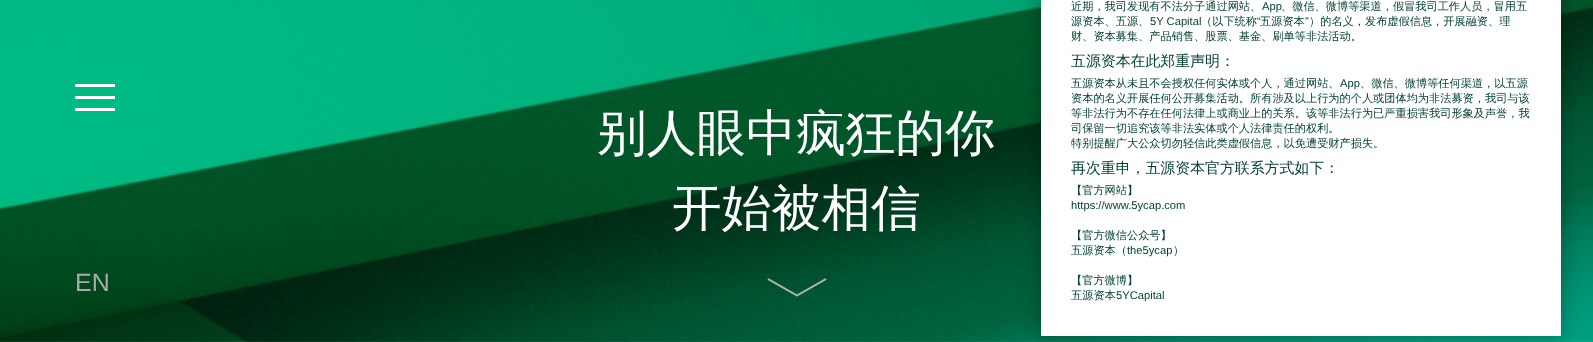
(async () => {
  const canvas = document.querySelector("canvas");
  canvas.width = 1593;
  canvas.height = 342;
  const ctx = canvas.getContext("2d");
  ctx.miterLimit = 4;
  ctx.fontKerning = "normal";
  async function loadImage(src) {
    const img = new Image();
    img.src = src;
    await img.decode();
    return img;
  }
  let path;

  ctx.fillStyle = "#ffffff";
  ctx.fillRect(0, 0, 1593, 342);
  ctx.drawImage(await loadImage("img/1.png"), 0, 0, 1593, 342);
  for (const [x, y, w, h, color] of [
    [75, 84, 40, 3, "#ffffff"],
    [75, 96, 40, 3, "#ffffff"],
    [75, 108, 40, 3, "#ffffff"],
  ]) {
    ctx.fillStyle = color;
    ctx.fillRect(x, y, w, h);
  }
  ctx.fillStyle = "rgba(0, 0, 0, 0.3)";
  ctx.filter = "blur(10px)";
  ctx.beginPath();
  ctx.rect(1041, -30, 520, 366);
  ctx.fill();
  ctx.filter = "none";
  ctx.fillStyle = "#ffffff";
  ctx.fillRect(1041, 0, 520, 336);
  path = new Path2D("M768 279L797 295.5L826 279");
  ctx.strokeStyle = "#ffffff";
  ctx.lineWidth = 1.9;
  ctx.stroke(path);
  path = new Path2D("M768 279L797 295.5L826 279");
  ctx.strokeStyle = "rgba(0, 0, 0, 0.3)";
  ctx.stroke(path);
  ctx.font = "500 11.2px WenQuanYi Zen Hei";
  ctx.fillStyle = "#044236";
  ctx.fillText("近期，我司发现有不法分子通过网站、", 1071, 10);
  ctx.font = "11.2px Liberation Sans";
  ctx.fillText("App", 1262, 10);
  ctx.font = "500 11.2px WenQuanYi Zen Hei";
  ctx.fillText("、微信、微博等渠道，假冒我司工作人员，冒用五", 1281, 10);
  ctx.fillText("源资本、五源、", 1071, 25);
  ctx.font = "11.2px Liberation Sans";
  ctx.fillText("5Y Capital", 1150, 25);
  ctx.font = "500 11.2px WenQuanYi Zen Hei";
  ctx.fillText("（以下统称", 1201, 25);
  ctx.font = "11.2px Liberation Sans";
  ctx.fillText("“", 1257, 25);
  ctx.font = "500 11.2px WenQuanYi Zen Hei";
  ctx.fillText("五源资本", 1260, 25);
  ctx.font = "11.2px Liberation Sans";
  ctx.fillText("”", 1305, 25);
  ctx.font = "500 11.2px WenQuanYi Zen Hei";
  ctx.fillText("）的名义，发布虚假信息，开展融资、理", 1309, 25);
  ctx.fillText("财、资本募集、产品销售、股票、基金、刷单等非法活动。", 1071, 40);
  ctx.font = "500 14.9px WenQuanYi Zen Hei";
  ctx.fillText("五源资本在此郑重声明：", 1071, 66);
  ctx.font = "500 11.2px WenQuanYi Zen Hei";
  ctx.fillText("五源资本从未且不会授权任何实体或个人，通过网站、", 1071, 87);
  ctx.font = "11.2px Liberation Sans";
  ctx.fillText("App", 1340, 87);
  ctx.font = "500 11.2px WenQuanYi Zen Hei";
  for (const [text, x, y] of [
    ["、微信、微博等任何渠道，以五源", 1360, 87],
    ["资本的名义开展任何公开募集活动。所有涉及以上行为的个人或团体均为非法募资，我司与该", 1071, 102],
    ["等非法行为不存在任何法律上或商业上的关系。该等非法行为已严重损害我司形象及声誉，我", 1071, 117],
    ["司保留一切追究该等非法实体或个人法律责任的权利。", 1071, 132],
    ["特别提醒广大公众切勿轻信此类虚假信息，以免遭受财产损失。", 1071, 147],
  ]) {
    ctx.fillText(text, x, y);
  }
  ctx.font = "500 14.9px WenQuanYi Zen Hei";
  ctx.fillText("再次重申，五源资本官方联系方式如下：", 1071, 173);
  ctx.font = "500 11.2px WenQuanYi Zen Hei";
  ctx.fillText("【官方网站】", 1071, 194);
  ctx.font = "11.2px Liberation Sans";
  ctx.fillText("https://www.5ycap.com", 1071, 209);
  ctx.font = "500 11.2px WenQuanYi Zen Hei";
  ctx.fillText("【官方微信公众号】", 1071, 239);
  ctx.fillText("五源资本（", 1071, 254);
  ctx.font = "11.2px Liberation Sans";
  ctx.fillText("the5ycap", 1127, 254);
  ctx.font = "500 11.2px WenQuanYi Zen Hei";
  for (const [text, x, y] of [
    ["）", 1173, 254],
    ["【官方微博】", 1071, 284],
    ["五源资本", 1071, 299],
  ]) {
    ctx.fillText(text, x, y);
  }
  ctx.font = "11.2px Liberation Sans";
  ctx.fillText("5YCapital", 1116, 299);
  ctx.font = "500 49.75px WenQuanYi Zen Hei";
  ctx.fillStyle = "#ffffff";
  ctx.fillText("别人眼中疯狂的你", 597, 150);
  ctx.fillText("开始被相信", 672, 225);
  ctx.font = "25px Liberation Sans";
  ctx.fillStyle = "#aaaaaa";
  ctx.fillText("EN", 75, 291);
})();
